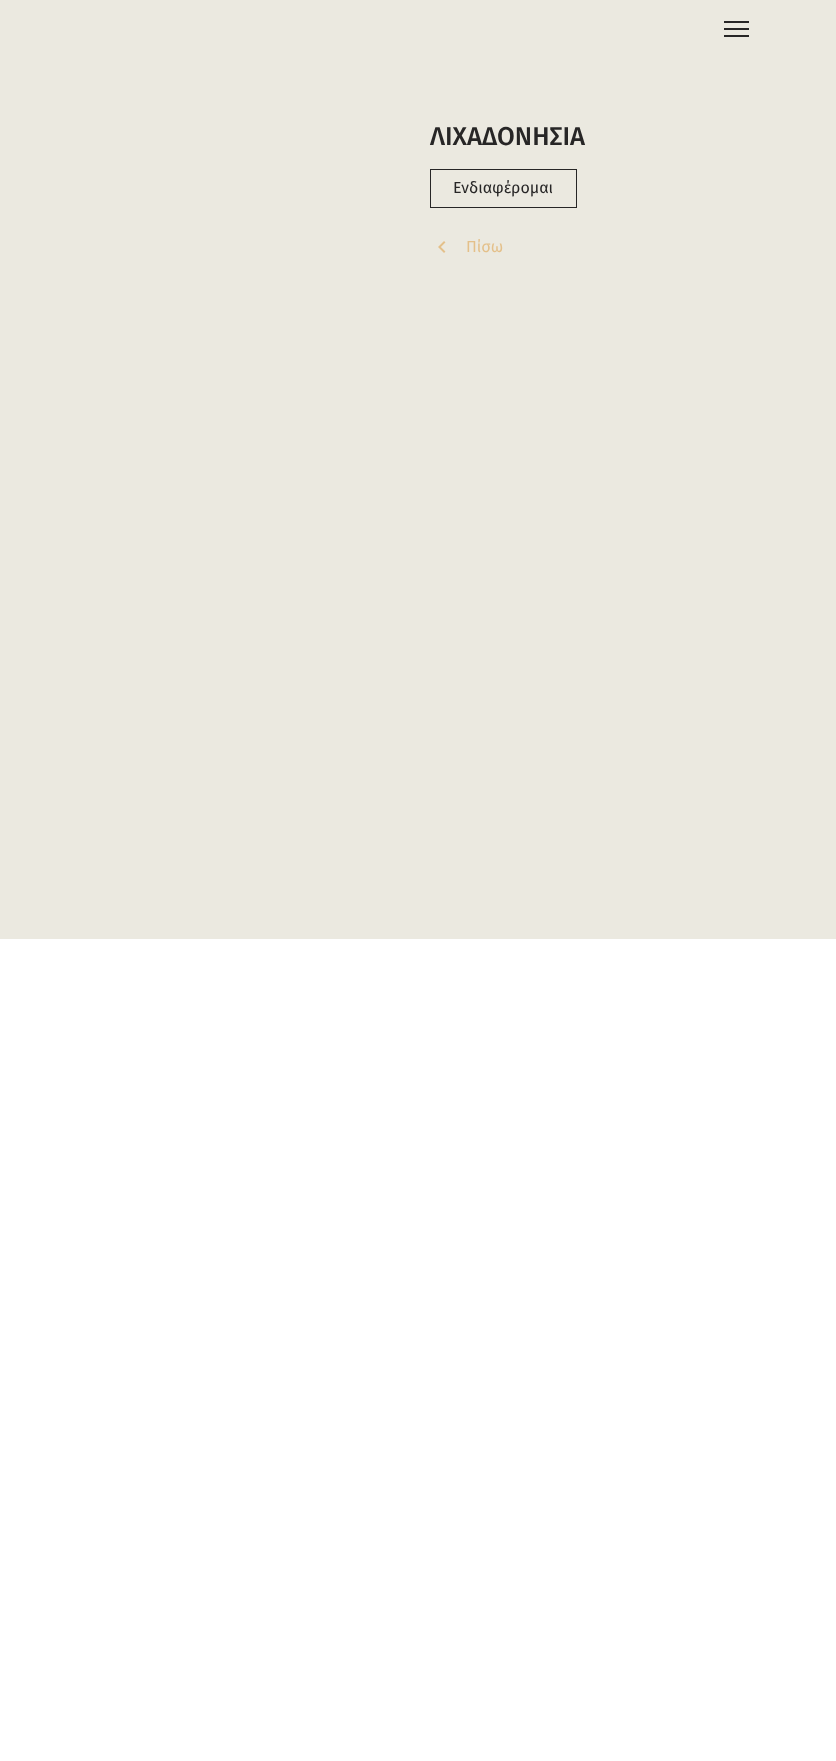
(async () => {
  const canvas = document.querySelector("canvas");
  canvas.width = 836;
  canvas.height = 1761;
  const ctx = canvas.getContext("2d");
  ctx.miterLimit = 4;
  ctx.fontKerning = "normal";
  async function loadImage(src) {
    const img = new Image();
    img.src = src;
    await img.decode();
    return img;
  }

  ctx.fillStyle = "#ffffff";
  ctx.fillRect(0, 0, 836, 1761);
  for (const [x, y, w, h, color] of [
    [0, 0, 836, 939, "#ebe9e0"],
    [724, 21, 25, 2, "#272626"],
    [724, 28, 25, 2, "#272626"],
    [724, 35, 25, 2, "#272626"],
  ]) {
    ctx.fillStyle = color;
    ctx.fillRect(x, y, w, h);
  }
  ctx.strokeStyle = "#272626";
  ctx.strokeRect(430.5, 169.5, 146, 38);
  ctx.drawImage(await loadImage("img/1.png"), 438, 241, 8, 12);
  ctx.font = "500 25.75px Fira Sans";
  ctx.fillText("ΛΙΧΑΔΟΝΗΣΙΑ", 430, 145);
  ctx.font = "16px Fira Sans";
  ctx.fillText("Ενδιαφέρομαι", 453, 193);
  ctx.fillStyle = "#e4c08a";
  ctx.fillText("Πίσω", 466, 252);
})();
